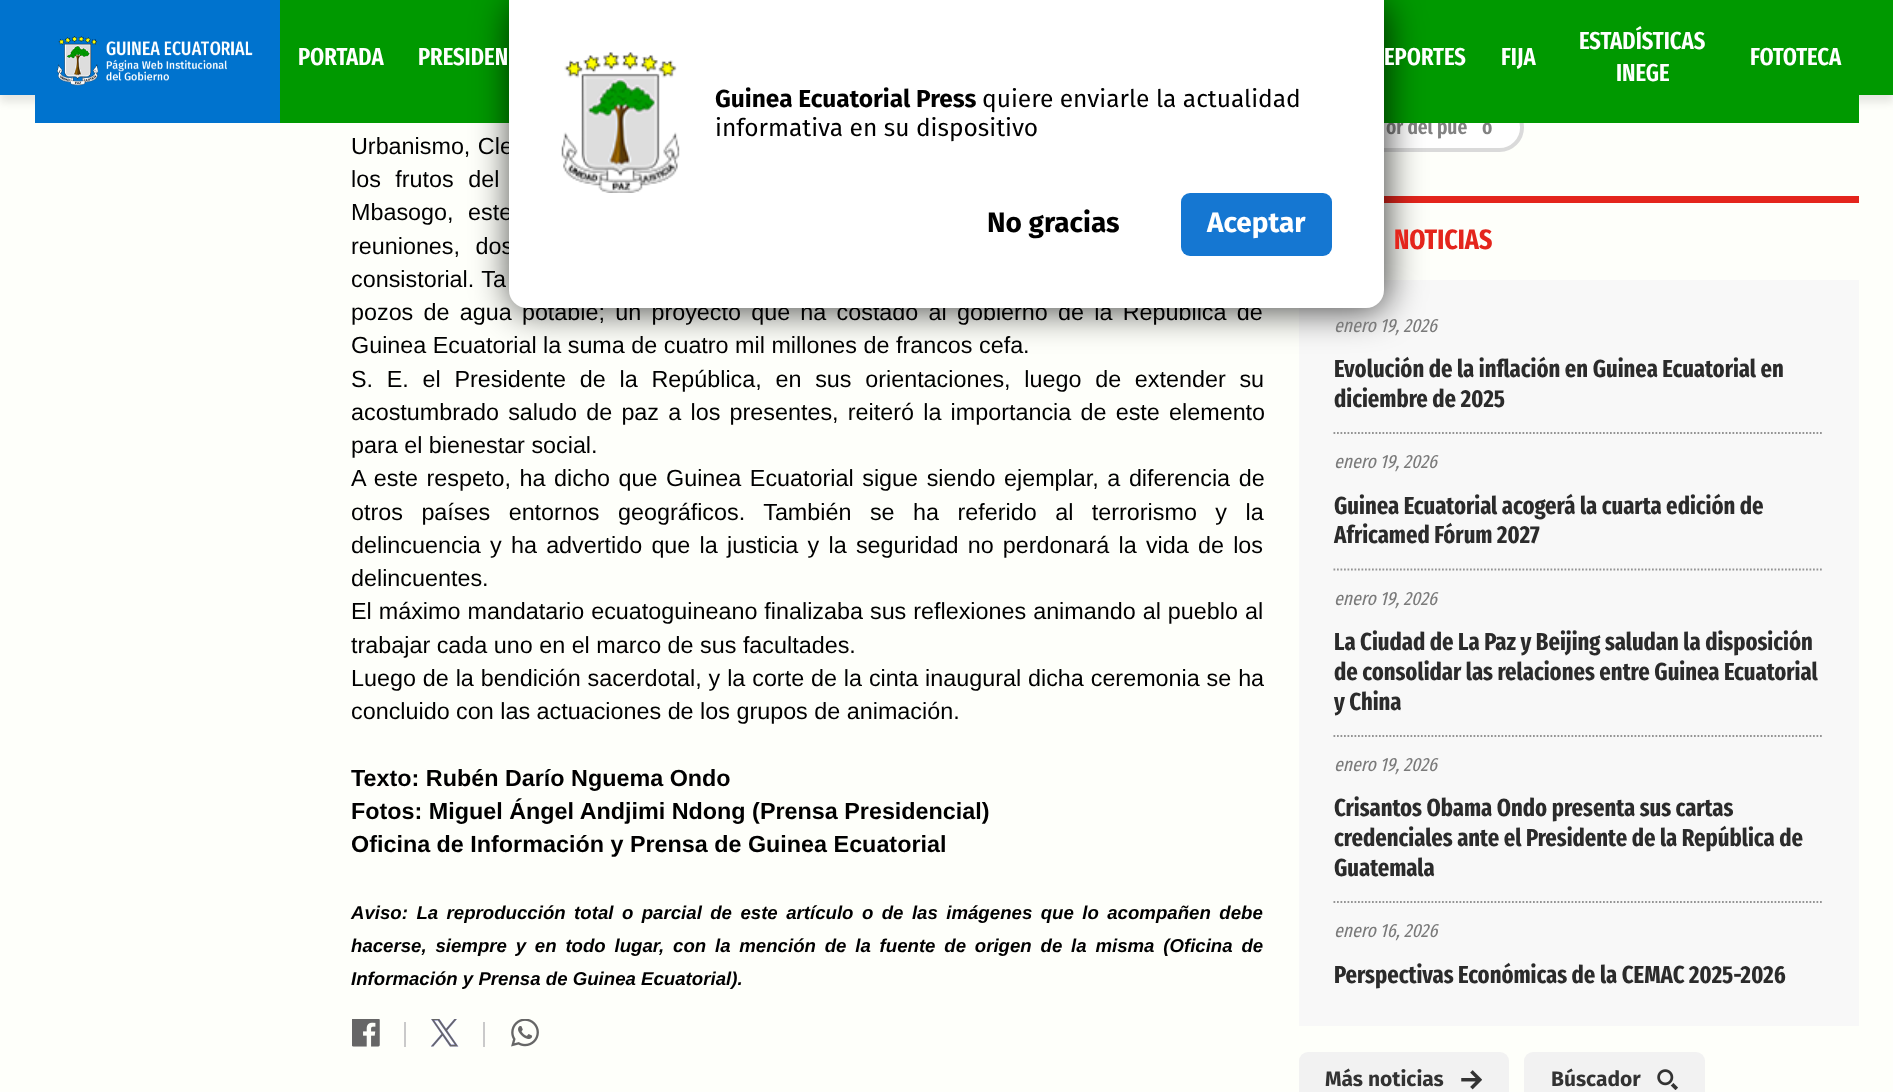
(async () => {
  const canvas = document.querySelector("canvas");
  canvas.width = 1893;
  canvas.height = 1092;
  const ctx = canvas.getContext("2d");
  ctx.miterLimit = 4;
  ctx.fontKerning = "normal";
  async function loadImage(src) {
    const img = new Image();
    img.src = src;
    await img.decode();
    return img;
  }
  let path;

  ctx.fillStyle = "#fefffa";
  ctx.fillRect(0, 0, 1893, 1092);
  ctx.fillStyle = "#ffffff";
  ctx.beginPath();
  ctx.roundRect(1301, 105, 221, 45, 22.5);
  ctx.fill();
  ctx.strokeStyle = "#dadada";
  ctx.lineWidth = 4;
  ctx.stroke();
  ctx.fillStyle = "rgba(0, 0, 0, 0.1)";
  ctx.filter = "blur(4.5px)";
  ctx.beginPath();
  ctx.rect(0, 7, 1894, 95);
  ctx.fill();
  ctx.filter = "none";
  for (const [x, y, w, h, color] of [
    [0, 0, 35, 95, "#0073ce"],
    [1859, 0, 34, 95, "#009900"],
    [35, 0, 245, 123, "#0073ce"],
  ]) {
    ctx.fillStyle = color;
    ctx.fillRect(x, y, w, h);
  }
  ctx.drawImage(await loadImage("img/1.png"), 57, 36, 196, 50);
  ctx.drawImage(await loadImage("img/3.png"), 352, 1019, 28, 28);
  ctx.fillStyle = "#cacaca";
  ctx.fillRect(404, 1022, 2, 25);
  ctx.drawImage(await loadImage("img/4.png"), 431, 1019, 28, 28);
  ctx.fillRect(483, 1022, 2, 25);
  ctx.drawImage(await loadImage("img/5.png"), 511, 1019, 28, 28);
  ctx.fillStyle = "#e4251c";
  ctx.fillRect(1384, 196, 475, 7);
  ctx.fillStyle = "#f8f8f8";
  ctx.fillRect(1299, 280, 560, 746);
  path = new Path2D("M1333.5 433H1823.5");
  ctx.strokeStyle = "#949494";
  ctx.lineWidth = 1.8;
  ctx.setLineDash([1.75, 1.75]);
  ctx.stroke(path);
  path = new Path2D("M1333.5 569.5H1823.5");
  ctx.stroke(path);
  path = new Path2D("M1333.5 736H1823.5");
  ctx.stroke(path);
  path = new Path2D("M1333.5 902H1823.5");
  ctx.stroke(path);
  ctx.fillStyle = "#f2f2f2";
  ctx.beginPath();
  ctx.roundRect(1299, 1052, 210, 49, 9);
  ctx.fill();
  ctx.drawImage(await loadImage("img/6.png"), 1461, 1070, 21, 20);
  ctx.beginPath();
  ctx.roundRect(1524, 1052, 181, 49, 9);
  ctx.fill();
  ctx.drawImage(await loadImage("img/7.png"), 1657, 1069, 21, 21);
  ctx.wordSpacing = "1px";
  ctx.font = "23.35px Liberation Sans";
  ctx.fillStyle = "#000000";
  ctx.fillText("Urbanismo, Cle", 351, 154);
  ctx.wordSpacing = "8px";
  ctx.fillText("los frutos del", 351, 187);
  ctx.fillText("Mbasogo, este", 351, 220);
  ctx.wordSpacing = "9px";
  ctx.fillText("reuniones, dos", 351, 254);
  ctx.wordSpacing = "1px";
  ctx.fillText("consistorial. Ta", 351, 287);
  ctx.wordSpacing = "3.75px";
  ctx.fillText("pozos de agua potable; un proyecto que ha costado al gobierno de la República de", 351, 320);
  ctx.wordSpacing = "0px";
  ctx.fillText("Guinea Ecuatorial la suma de cuatro mil millones de francos cefa.", 351, 353);
  ctx.wordSpacing = "7.25px";
  ctx.fillText("S. E. el Presidente de la República, en sus orientaciones, luego de extender su", 351, 387);
  ctx.wordSpacing = "2.75px";
  ctx.fillText("acostumbrado saludo de paz a los presentes, reiteró la importancia de este elemento", 351, 420);
  ctx.wordSpacing = "0px";
  ctx.fillText("para el bienestar social.", 351, 453);
  ctx.wordSpacing = "2.1px";
  ctx.fillText("A este respeto, ha dicho que Guinea Ecuatorial sigue siendo ejemplar, a diferencia de", 351, 486);
  ctx.wordSpacing = "12px";
  ctx.fillText("otros países entornos geográficos. También se ha referido al terrorismo y la", 351, 520);
  ctx.wordSpacing = "2.75px";
  ctx.fillText("delincuencia y ha advertido que la justicia y la seguridad no perdonará la vida de los", 351, 553);
  ctx.wordSpacing = "0px";
  ctx.fillText("delincuentes.", 351, 586);
  ctx.wordSpacing = "0.5px";
  ctx.fillText("El máximo mandatario ecuatoguineano finalizaba sus reflexiones animando al pueblo al", 351, 619);
  ctx.wordSpacing = "0px";
  ctx.fillText("trabajar cada uno en el marco de sus facultades.", 351, 653);
  ctx.wordSpacing = "0.4px";
  ctx.fillText("Luego de la bendición sacerdotal, y la corte de la cinta inaugural dicha ceremonia se ha", 351, 686);
  ctx.wordSpacing = "0px";
  ctx.fillText("concluido con las actuaciones de los grupos de animación.", 351, 719);
  ctx.font = "bold 23.35px Liberation Sans";
  for (const [text, x, y] of [
    ["Texto: Rubén Darío Nguema Ondo", 351, 786],
    ["Fotos: Miguel Ángel Andjimi Ndong (Prensa Presidencial)", 351, 819],
    ["Oficina de Información y Prensa de Guinea Ecuatorial", 351, 852],
  ]) {
    ctx.fillText(text, x, y);
  }
  ctx.wordSpacing = "3.25px";
  ctx.font = "italic bold 18.65px Liberation Sans";
  ctx.fillText("Aviso: La reproducción total o parcial de este artículo o de las imágenes que lo acompañen debe", 351, 919);
  ctx.wordSpacing = "3.6px";
  ctx.fillText("hacerse, siempre y en todo lugar, con la mención de la fuente de origen de la misma (Oficina de", 351, 952);
  ctx.wordSpacing = "0px";
  ctx.fillText("Información y Prensa de Guinea Ecuatorial).", 351, 985);
  ctx.font = "600 21px Fira Sans Extra Condensed";
  ctx.fillStyle = "#828282";
  ctx.fillText("or del pue", 1386, 134);
  ctx.fillText("o", 1482, 134);
  ctx.fillStyle = "#009900";
  ctx.fillRect(280, 0, 1579, 123);
  ctx.fillStyle = "rgba(0, 0, 0, 0.75)";
  ctx.filter = "blur(18.5px)";
  ctx.beginPath();
  ctx.roundRect(511, 2, 875, 308, 18);
  ctx.fill();
  ctx.filter = "none";
  ctx.fillStyle = "#ffffff";
  ctx.beginPath();
  ctx.roundRect(509, 0, 875, 308, [0, 0, 18, 18]);
  ctx.fill();
  ctx.fillStyle = "#1577d2";
  ctx.beginPath();
  ctx.roundRect(1181, 193, 151, 63, 9);
  ctx.fill();
  ctx.font = "bold 28px Fira Sans";
  ctx.fillStyle = "#ffffff";
  ctx.fillText("Aceptar", 1207, 232);
  ctx.fillStyle = "#000000";
  ctx.fillText("No gracias", 987, 232);
  ctx.font = "24.5px Fira Sans";
  ctx.fillText("informativa en su dispositivo", 715, 136);
  ctx.fillText("quiere enviarle la actualidad", 982, 107);
  ctx.font = "bold 24.5px Fira Sans";
  ctx.fillText("Guinea Ecuatorial Press", 715, 107);
  ctx.drawImage(await loadImage("img/2.png"), 561, 52, 119, 141);
  ctx.font = "600 24.5px Fira Sans Extra Condensed";
  ctx.fillStyle = "#ffffff";
  for (const [text, x, y] of [
    ["FOTOTECA", 1750, 65],
    ["INEGE", 1616, 81],
    ["ESTADÍSTICAS", 1579, 49],
    ["FIJA", 1501, 65],
    ["EPORTES", 1384, 65],
    ["PRESIDEN", 418, 65],
    ["PORTADA", 298, 65],
  ]) {
    ctx.fillText(text, x, y);
  }
  ctx.font = "bold 28px Fira Sans Extra Condensed";
  ctx.fillStyle = "#e4251c";
  ctx.fillText("NOTICIAS", 1394, 249);
  ctx.font = "italic 19.25px Fira Sans Extra Condensed";
  ctx.fillStyle = "#7a7a7a";
  ctx.fillText("enero 19, 2026", 1334, 332);
  ctx.font = "bold 24.5px Fira Sans Extra Condensed";
  ctx.fillStyle = "#2b2b2b";
  ctx.fillText("Evolución de la inflación en Guinea Ecuatorial en", 1334, 377);
  ctx.fillText("diciembre de 2025", 1334, 407);
  ctx.font = "italic 19.25px Fira Sans Extra Condensed";
  ctx.fillStyle = "#7a7a7a";
  ctx.fillText("enero 19, 2026", 1334, 468);
  ctx.font = "bold 24.5px Fira Sans Extra Condensed";
  ctx.fillStyle = "#2b2b2b";
  ctx.fillText("Guinea Ecuatorial acogerá la cuarta edición de", 1334, 514);
  ctx.fillText("Africamed Fórum 2027", 1334, 543);
  ctx.font = "italic 19.25px Fira Sans Extra Condensed";
  ctx.fillStyle = "#7a7a7a";
  ctx.fillText("enero 19, 2026", 1334, 605);
  ctx.font = "bold 24.5px Fira Sans Extra Condensed";
  ctx.fillStyle = "#2b2b2b";
  for (const [text, x, y] of [
    ["La Ciudad de La Paz y Beijing saludan la disposición", 1334, 650],
    ["de consolidar las relaciones entre Guinea Ecuatorial", 1334, 680],
    ["y China", 1334, 710],
  ]) {
    ctx.fillText(text, x, y);
  }
  ctx.font = "italic 19.25px Fira Sans Extra Condensed";
  ctx.fillStyle = "#7a7a7a";
  ctx.fillText("enero 19, 2026", 1334, 771);
  ctx.font = "bold 24.5px Fira Sans Extra Condensed";
  ctx.fillStyle = "#2b2b2b";
  for (const [text, x, y] of [
    ["Crisantos Obama Ondo presenta sus cartas", 1334, 816],
    ["credenciales ante el Presidente de la República de", 1334, 846],
    ["Guatemala", 1334, 876],
  ]) {
    ctx.fillText(text, x, y);
  }
  ctx.font = "italic 19.25px Fira Sans Extra Condensed";
  ctx.fillStyle = "#7a7a7a";
  ctx.fillText("enero 16, 2026", 1334, 937);
  ctx.font = "bold 24.5px Fira Sans Extra Condensed";
  ctx.fillStyle = "#2b2b2b";
  ctx.fillText("Perspectivas Económicas de la CEMAC 2025-2026", 1334, 983);
  ctx.font = "bold 21px Fira Sans";
  ctx.fillStyle = "#333333";
  ctx.fillText("Más noticias", 1325, 1086);
  ctx.fillText("Búscador", 1551, 1086);
})();
